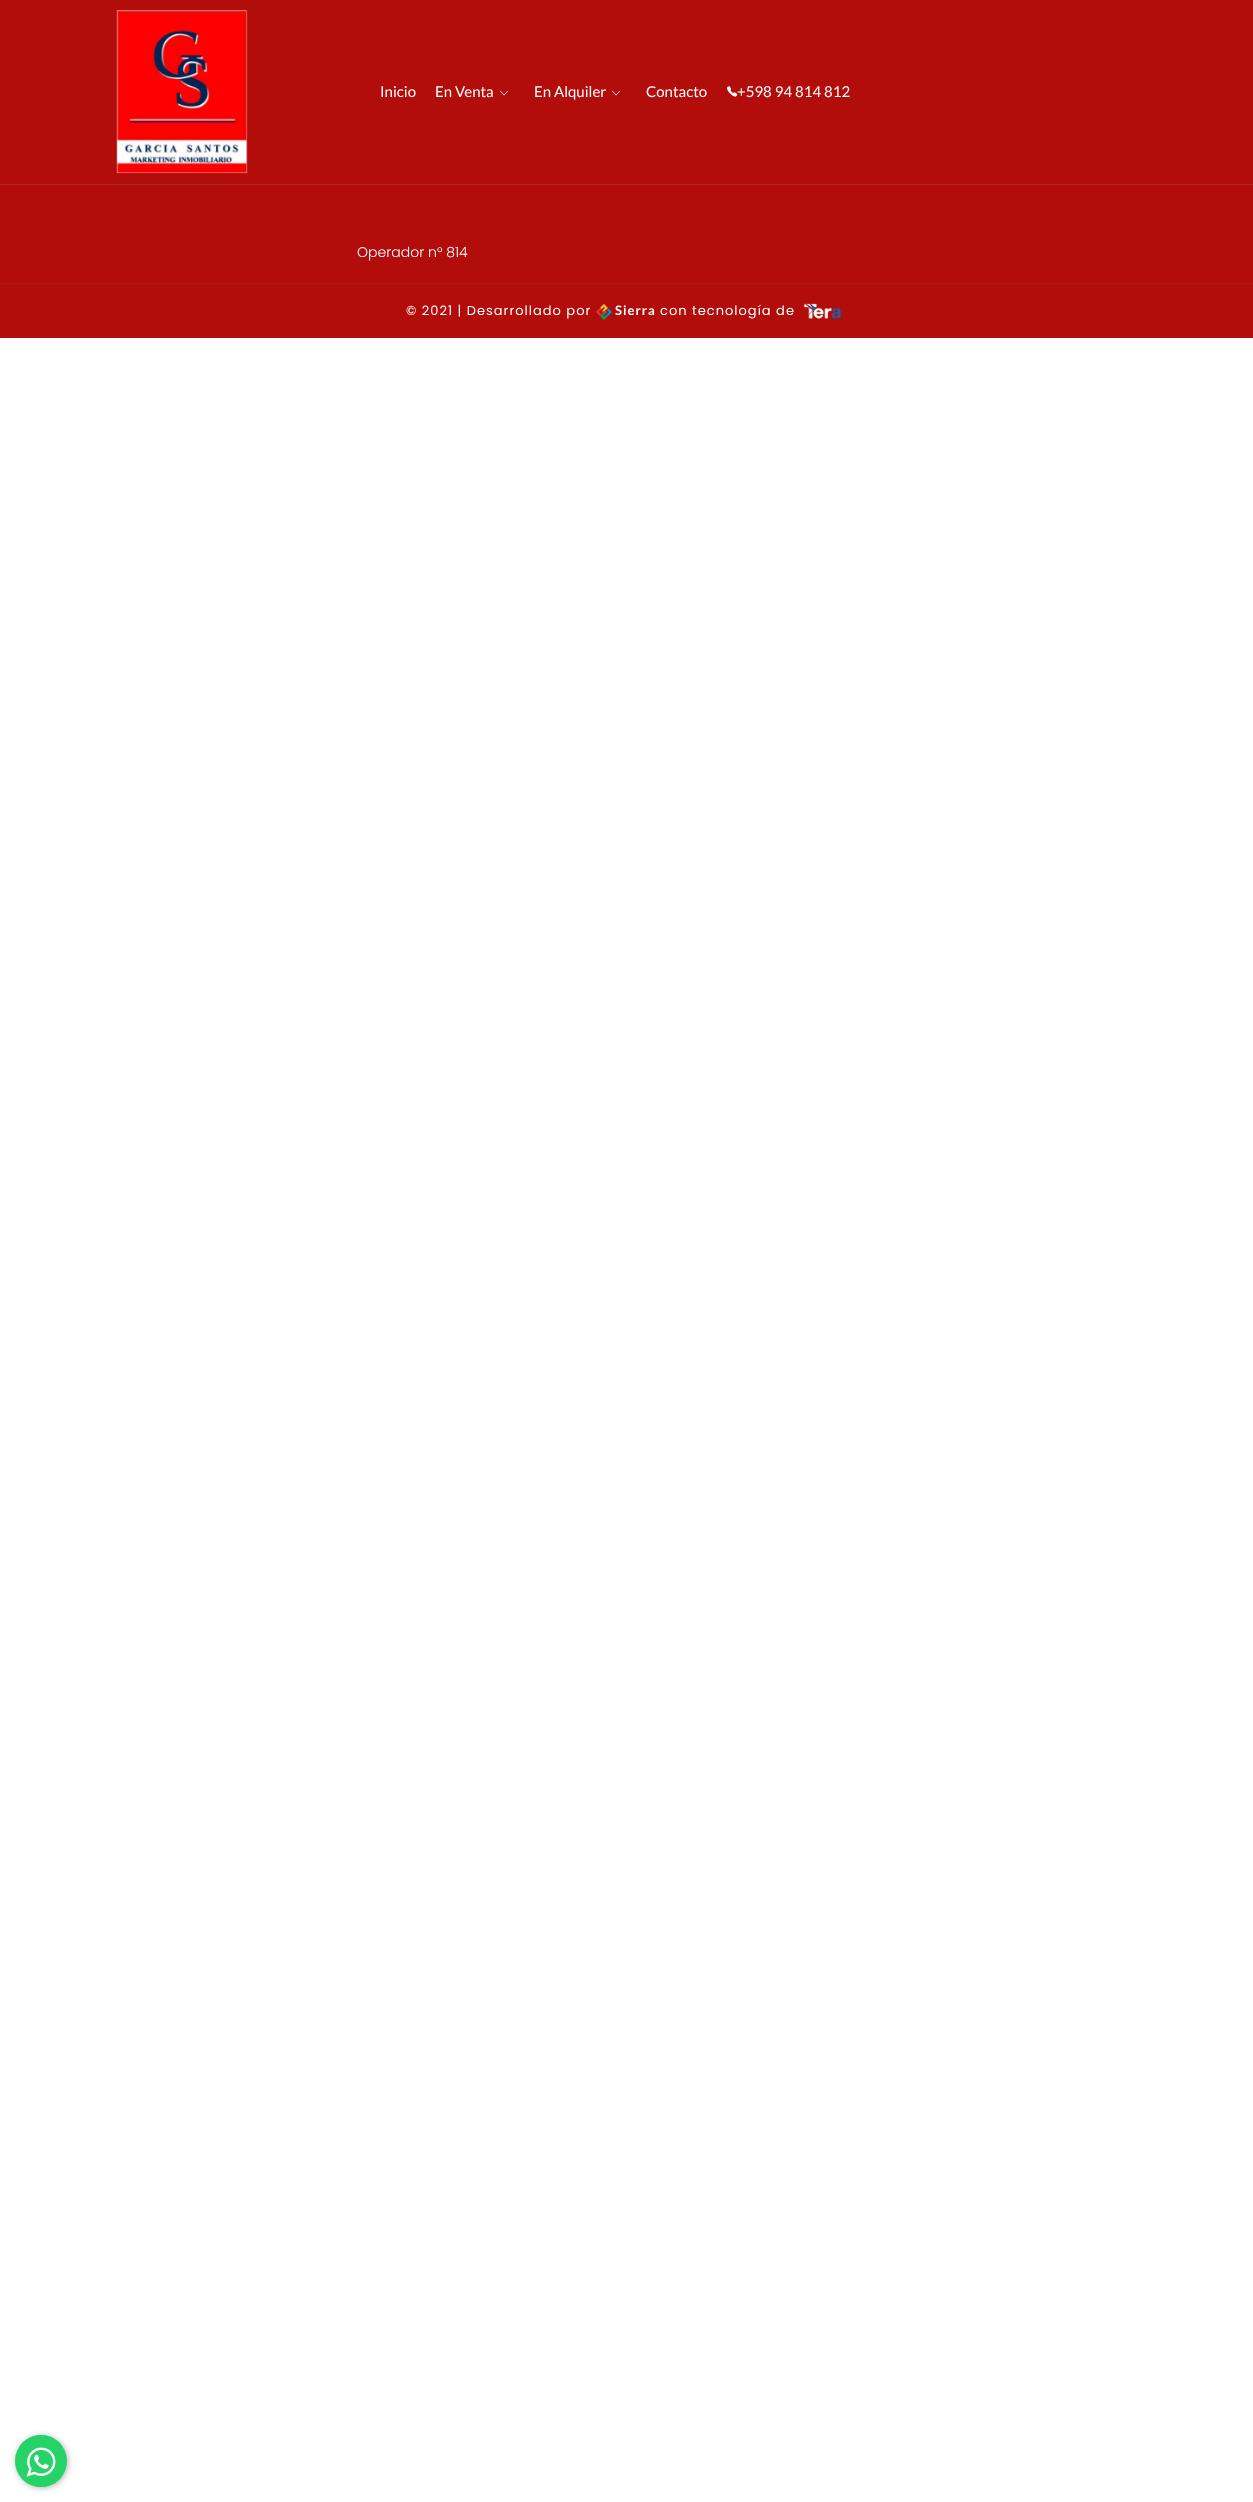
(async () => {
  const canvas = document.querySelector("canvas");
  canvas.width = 1253;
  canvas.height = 2502;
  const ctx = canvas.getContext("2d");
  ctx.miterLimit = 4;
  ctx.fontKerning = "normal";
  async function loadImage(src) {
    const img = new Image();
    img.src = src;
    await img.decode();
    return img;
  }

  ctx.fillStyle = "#ffffff";
  ctx.fillRect(0, 0, 1253, 2502);
  ctx.fillStyle = "#b20c0b";
  ctx.fillRect(0, 0, 1253, 184);
  ctx.fillStyle = "#ad2b2a";
  ctx.fillRect(0, 184, 1253, 1);
  ctx.drawImage(await loadImage("img/1.png"), 116, 10, 132, 164);
  ctx.drawImage(await loadImage("img/2.png"), 500, 90, 8, 6);
  ctx.drawImage(await loadImage("img/2.png"), 612, 90, 8, 6);
  ctx.drawImage(await loadImage("img/3.png"), 727, 86, 11, 11);
  ctx.fillStyle = "#b20c0b";
  ctx.fillRect(0, 185, 1253, 153);
  ctx.fillStyle = "#a71917";
  ctx.fillRect(0, 283, 1253, 1);
  ctx.drawImage(await loadImage("img/4.png"), 596, 304, 16, 16);
  ctx.drawImage(await loadImage("img/5.png"), 803, 303, 39, 16);
  ctx.fillStyle = "rgba(0, 0, 0, 0.3)";
  ctx.filter = "blur(3px)";
  ctx.beginPath();
  ctx.roundRect(16, 2436, 52, 52, 26);
  ctx.fill();
  ctx.filter = "none";
  ctx.fillStyle = "#25d366";
  ctx.beginPath();
  ctx.arc(41, 2461, 26, 0, Math.PI * 2);
  ctx.fill();
  ctx.save();
  ctx.beginPath();
  ctx.roundRect(15, 2435, 52, 52, 26);
  ctx.clip();
  ctx.fillRect(20, 2435, 42, 52);
  ctx.restore();
  ctx.drawImage(await loadImage("img/6.png"), 26, 2447, 30, 30);
  ctx.font = "15px Lato";
  ctx.fillStyle = "#ffffff";
  for (const [text, x, y] of [
    ["Inicio", 380, 97],
    ["En Venta", 435, 97],
    ["En Alquiler", 534, 97],
    ["Contacto", 646, 97],
    ["+598 94 814 812", 737, 97],
  ]) {
    ctx.fillText(text, x, y);
  }
  ctx.font = "300 14px Poppins";
  ctx.fillText("Operador n° 814", 357, 257);
  ctx.letterSpacing = "1px";
  ctx.font = "13px Poppins";
  ctx.fillText("© 2021 | Desarrollado por", 406, 315);
  ctx.font = "bold 13px Lato";
  ctx.fillText("Sierra", 615, 315);
  ctx.font = "13px Poppins";
  ctx.fillText("con tecnología de", 660, 315);
})();
